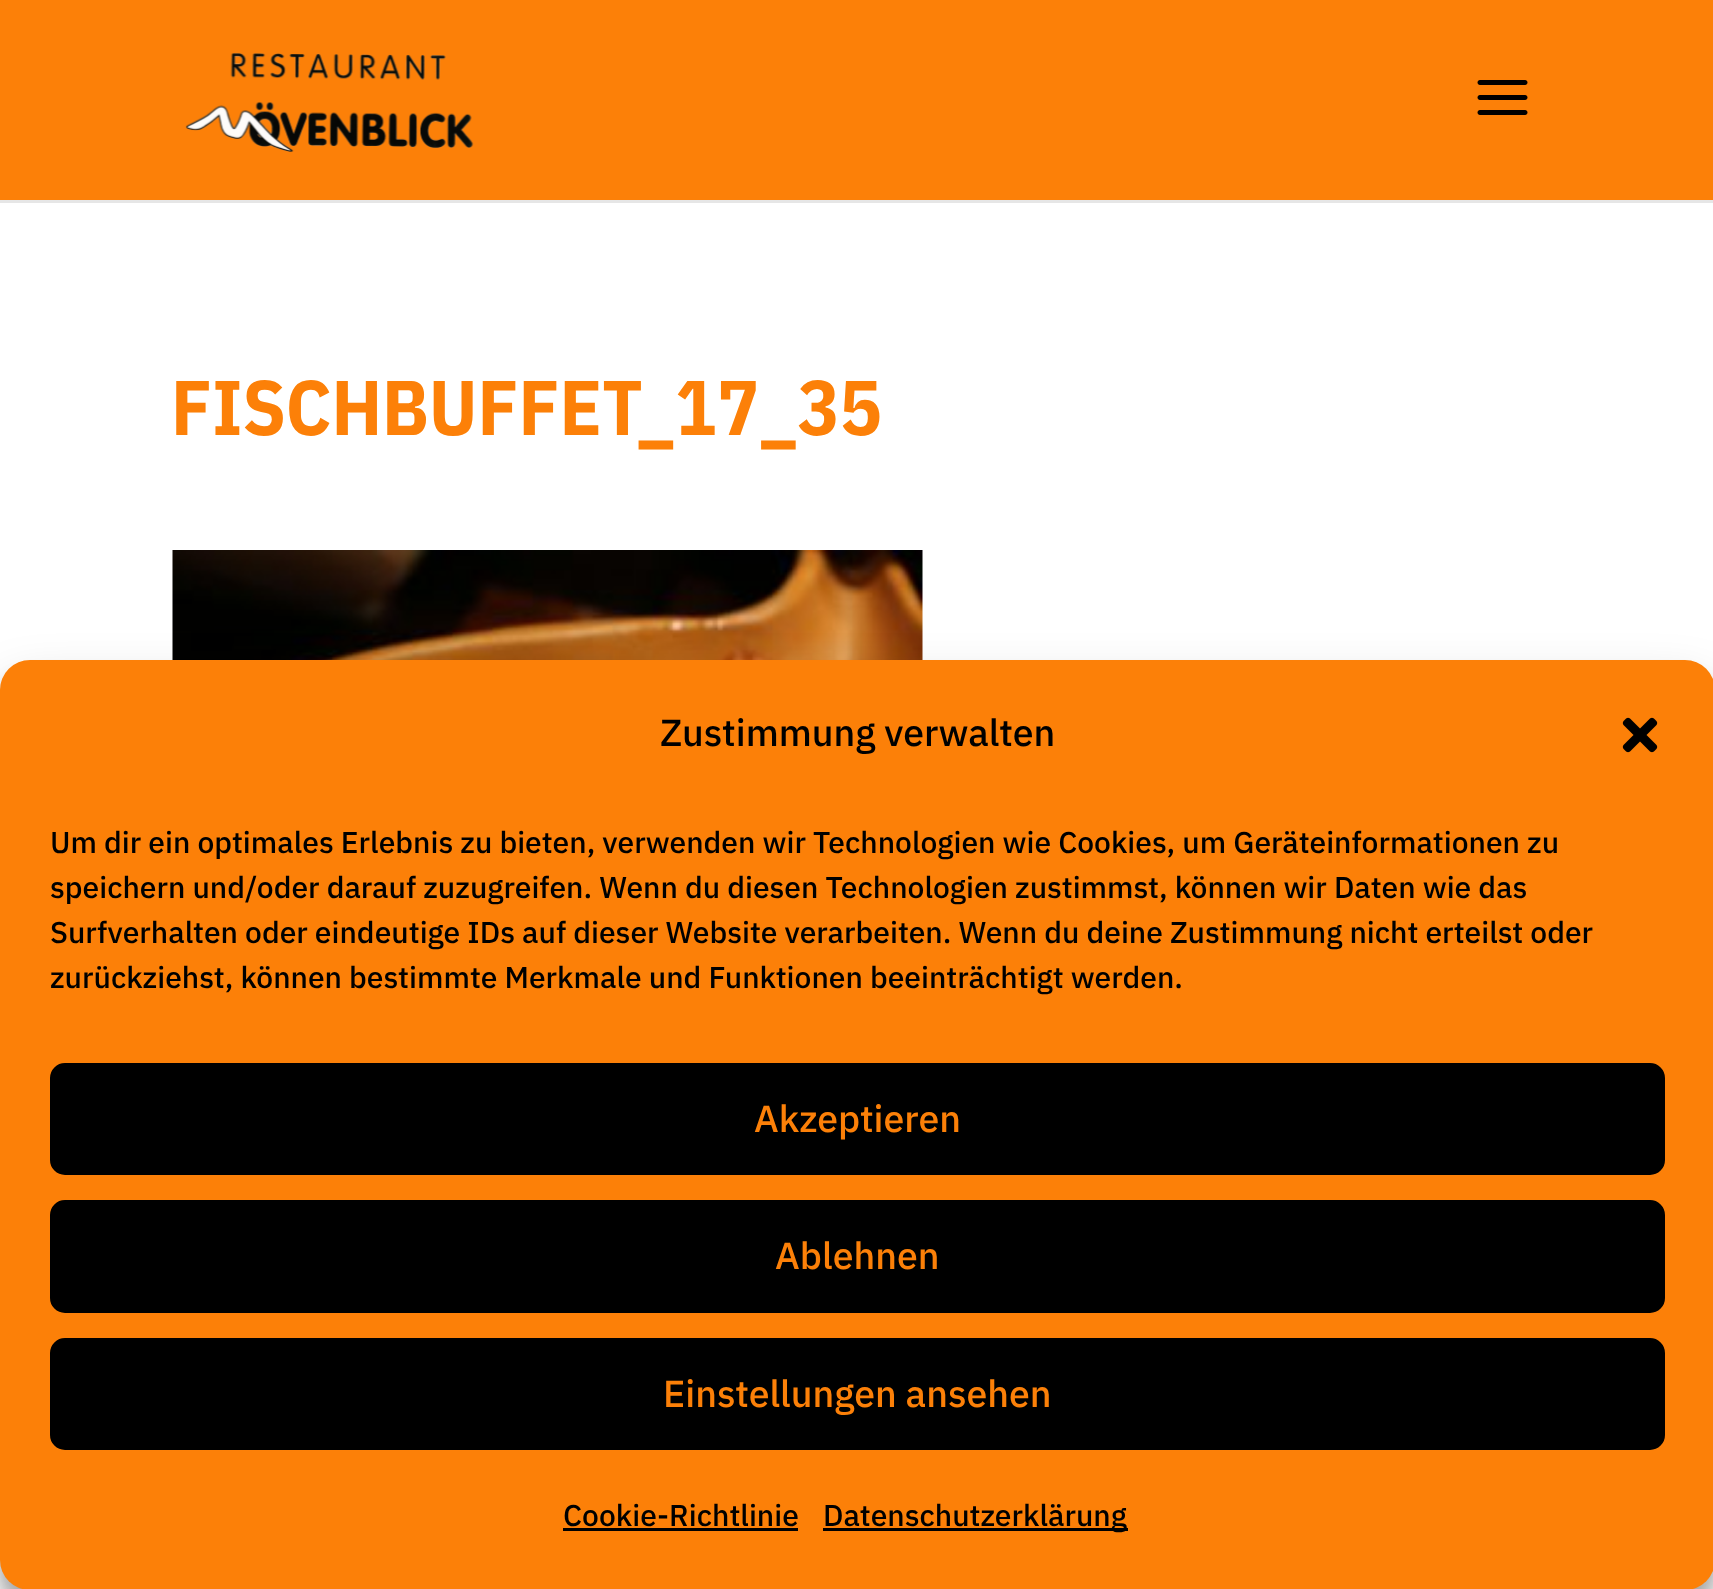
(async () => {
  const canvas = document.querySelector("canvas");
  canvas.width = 1713;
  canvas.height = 1589;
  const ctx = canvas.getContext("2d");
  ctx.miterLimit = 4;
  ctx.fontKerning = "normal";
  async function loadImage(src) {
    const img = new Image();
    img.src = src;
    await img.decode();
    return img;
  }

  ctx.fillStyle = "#ffffff";
  ctx.fillRect(0, 0, 1713, 1589);
  ctx.fillStyle = "#e6e6e6";
  ctx.fillRect(0, 200, 1713, 3);
  ctx.fillStyle = "#fc8008";
  ctx.fillRect(0, 0, 1713, 200);
  ctx.drawImage(await loadImage("img/1.png"), 185, 53, 289, 99);
  ctx.drawImage(await loadImage("img/2.png"), 1477, 80, 51, 35);
  ctx.drawImage(await loadImage("img/3.png"), 172, 550, 751, 110);
  ctx.fillStyle = "rgba(0, 0, 0, 0.23)";
  ctx.filter = "blur(7.5px)";
  ctx.beginPath();
  ctx.roundRect(0, 675, 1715, 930, 30);
  ctx.fill();
  ctx.filter = "none";
  ctx.fillStyle = "rgba(0, 0, 0, 0.19)";
  ctx.filter = "blur(25px)";
  ctx.beginPath();
  ctx.roundRect(0, 685, 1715, 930, 30);
  ctx.fill();
  ctx.filter = "none";
  ctx.fillStyle = "#fc8008";
  ctx.beginPath();
  ctx.roundRect(0, 660, 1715, 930, 30);
  ctx.fill();
  ctx.drawImage(await loadImage("img/4.png"), 1622, 717, 36, 36);
  ctx.fillStyle = "#000000";
  ctx.beginPath();
  ctx.roundRect(51.5, 1064.5, 1612, 109, 13.5);
  ctx.fill();
  ctx.strokeStyle = "#000000";
  ctx.lineWidth = 3;
  ctx.stroke();
  ctx.beginPath();
  ctx.roundRect(51.5, 1201.5, 1612, 110, 13.5);
  ctx.fill();
  ctx.stroke();
  ctx.beginPath();
  ctx.roundRect(51.5, 1339.5, 1612, 109, 13.5);
  ctx.fill();
  ctx.stroke();
  ctx.fillRect(563, 1528, 235, 3);
  ctx.fillRect(823, 1528, 305, 3);
  ctx.font = "bold 77.5px IBM Plex Sans Condensed";
  ctx.fillStyle = "#fc8008";
  ctx.fillText("FISCHBUFFET_17_35", 171, 435);
  ctx.font = "500 37.5px IBM Plex Sans";
  ctx.fillStyle = "#000000";
  ctx.fillText("Zustimmung verwalten", 660, 746);
  ctx.font = "500 30px IBM Plex Sans";
  for (const [text, x, y] of [
    ["Um dir ein optimales Erlebnis zu bieten, verwenden wir Technologien wie Cookies, um Geräteinformationen zu", 50, 853],
    ["speichern und/oder darauf zuzugreifen. Wenn du diesen Technologien zustimmst, können wir Daten wie das", 50, 898],
    ["Surfverhalten oder eindeutige IDs auf dieser Website verarbeiten. Wenn du deine Zustimmung nicht erteilst oder", 50, 943],
    ["zurückziehst, können bestimmte Merkmale und Funktionen beeinträchtigt werden.", 50, 988],
  ]) {
    ctx.fillText(text, x, y);
  }
  ctx.font = "500 37.5px IBM Plex Sans";
  ctx.fillStyle = "#fc8008";
  for (const [text, x, y] of [
    ["Akzeptieren", 754, 1132],
    ["Ablehnen", 775, 1269],
    ["Einstellungen ansehen", 663, 1407],
  ]) {
    ctx.fillText(text, x, y);
  }
  ctx.font = "500 30px IBM Plex Sans";
  ctx.fillStyle = "#000000";
  ctx.fillText("Cookie-Richtlinie", 563, 1526);
  ctx.fillText("Datenschutzerklärung", 823, 1526);
})();
